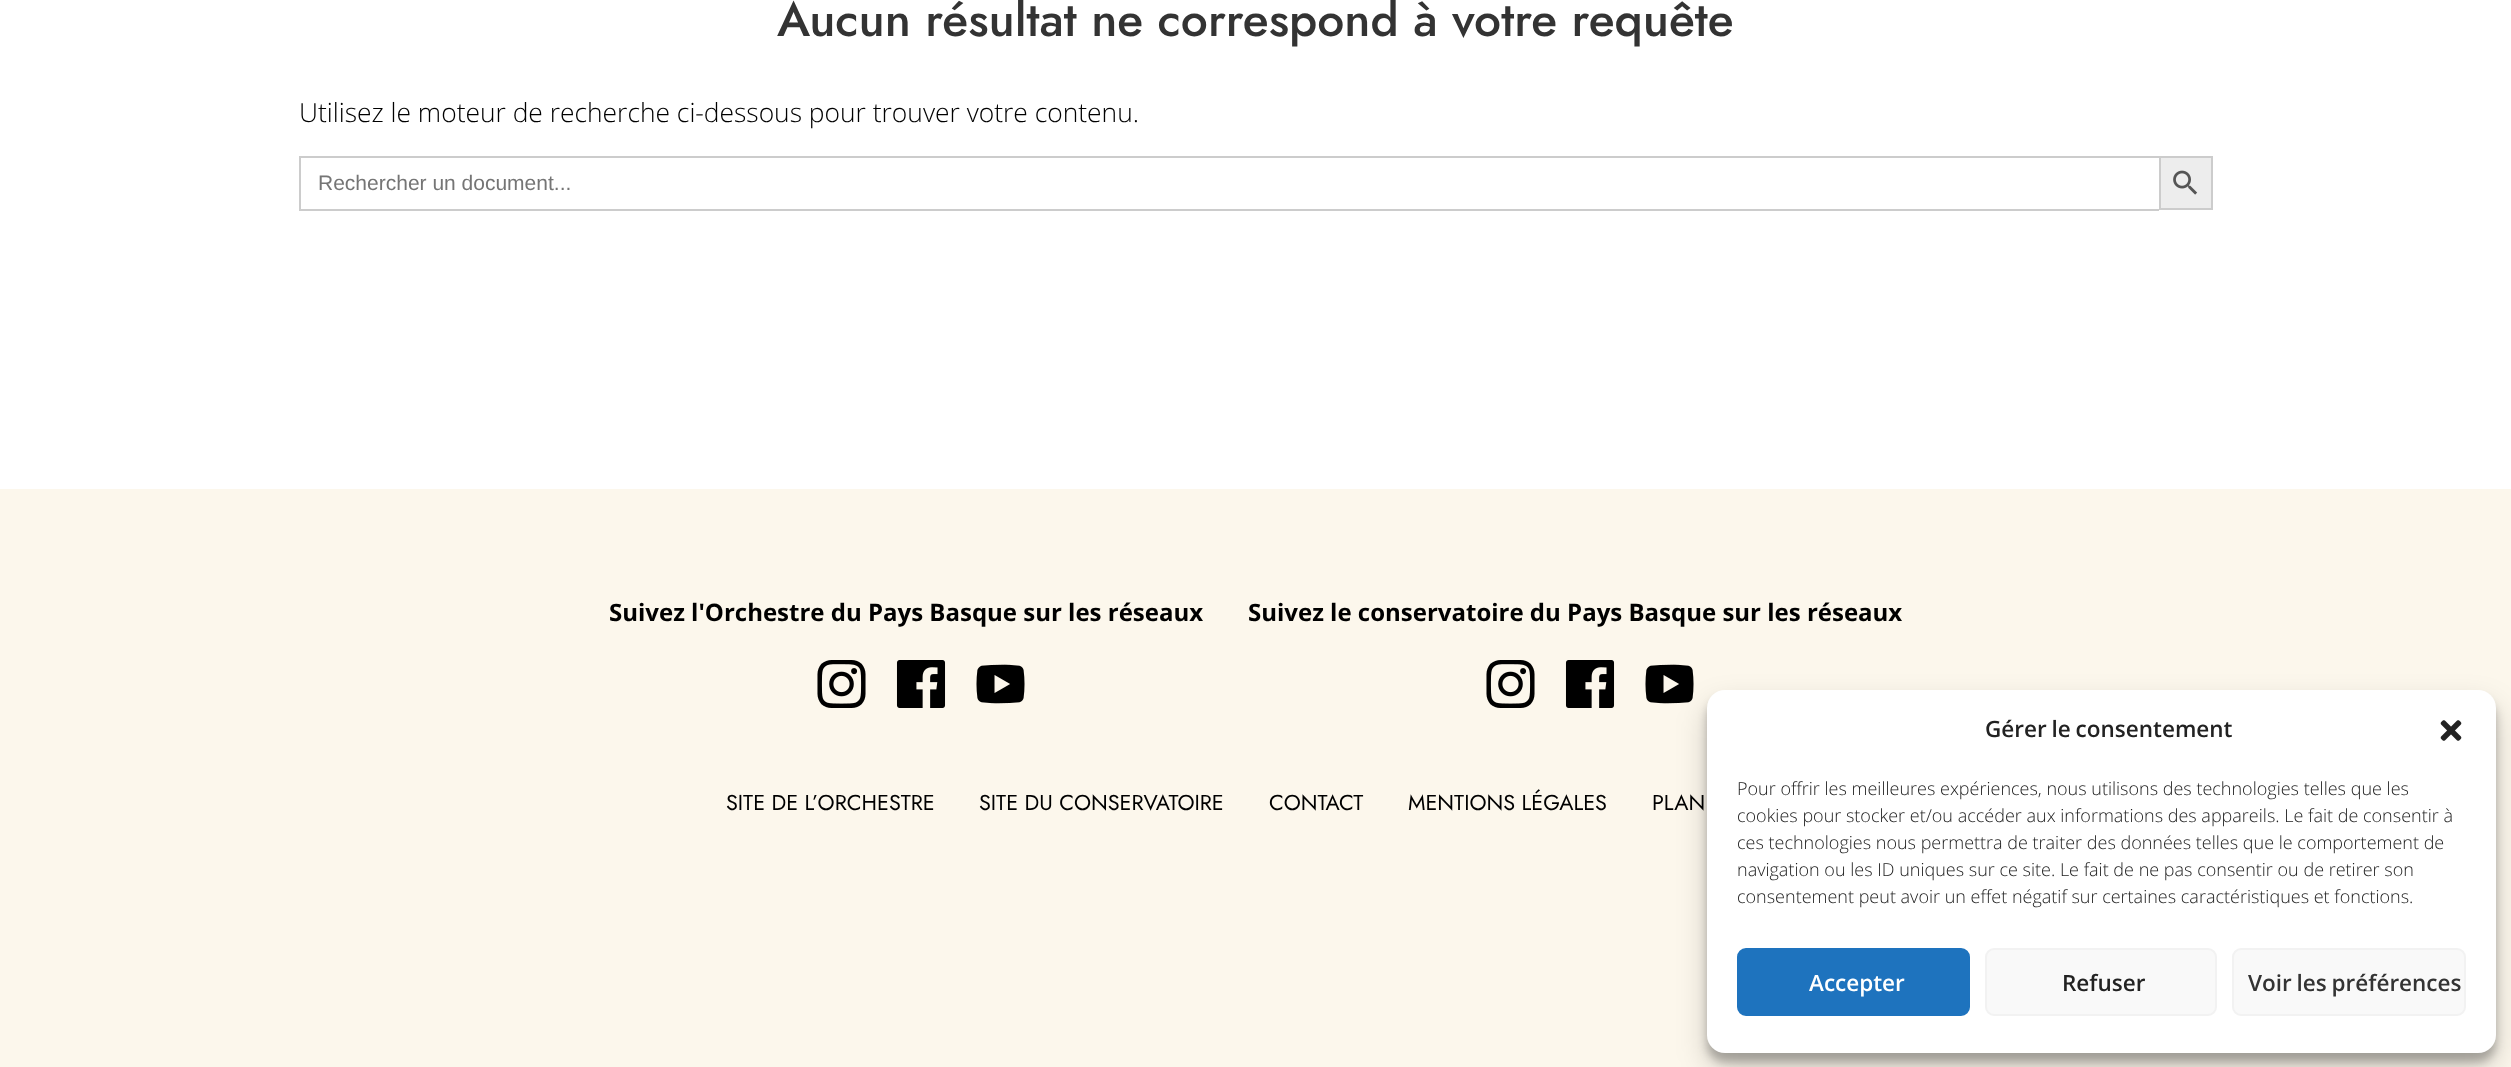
(async () => {
  const canvas = document.querySelector("canvas");
  canvas.width = 2511;
  canvas.height = 1067;
  const ctx = canvas.getContext("2d");
  ctx.miterLimit = 4;
  ctx.fontKerning = "normal";
  async function loadImage(src) {
    const img = new Image();
    img.src = src;
    await img.decode();
    return img;
  }

  ctx.fillStyle = "#ffffff";
  ctx.fillRect(0, 0, 2511, 1067);
  for (const [x, y, w, h, color] of [
    [299, 156, 1860, 2, "#cccccc"],
    [299, 209, 1860, 2, "#cccccc"],
    [299, 156, 2, 54, "#cccccc"],
  ]) {
    ctx.fillStyle = color;
    ctx.fillRect(x, y, w, h);
  }
  ctx.fillStyle = "#ededed";
  ctx.beginPath();
  ctx.rect(2160, 157, 52, 52);
  ctx.fill();
  ctx.strokeStyle = "#cccccc";
  ctx.lineWidth = 2;
  ctx.stroke();
  ctx.drawImage(await loadImage("img/1.png"), 2173, 170, 25, 25);
  ctx.fillStyle = "#fcf7ec";
  ctx.fillRect(0, 489, 2511, 578);
  ctx.drawImage(await loadImage("img/2.png"), 817, 660, 49, 48);
  ctx.drawImage(await loadImage("img/3.png"), 896, 660, 50, 48);
  ctx.drawImage(await loadImage("img/4.png"), 976, 664, 49, 40);
  ctx.drawImage(await loadImage("img/2.png"), 1486, 660, 49, 48);
  ctx.drawImage(await loadImage("img/3.png"), 1565, 660, 50, 48);
  ctx.drawImage(await loadImage("img/4.png"), 1645, 664, 49, 40);
  ctx.fillStyle = "rgba(0, 0, 0, 0.23)";
  ctx.filter = "blur(4.5px)";
  ctx.beginPath();
  ctx.roundRect(1707, 699, 789, 363, 18);
  ctx.fill();
  ctx.filter = "none";
  ctx.fillStyle = "rgba(0, 0, 0, 0.19)";
  ctx.filter = "blur(15px)";
  ctx.beginPath();
  ctx.roundRect(1707, 705, 789, 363, 18);
  ctx.fill();
  ctx.filter = "none";
  ctx.fillStyle = "#ffffff";
  ctx.beginPath();
  ctx.roundRect(1707, 690, 789, 363, 18);
  ctx.fill();
  ctx.drawImage(await loadImage("img/5.png"), 2440, 720, 22, 21);
  ctx.fillStyle = "#1e73be";
  ctx.beginPath();
  ctx.roundRect(1738, 949, 231, 66, 8);
  ctx.fill();
  ctx.strokeStyle = "#1e73be";
  ctx.stroke();
  ctx.fillStyle = "#f9f9f9";
  ctx.beginPath();
  ctx.roundRect(1986, 949, 230, 66, 8);
  ctx.fill();
  ctx.strokeStyle = "#f2f2f2";
  ctx.stroke();
  ctx.beginPath();
  ctx.roundRect(2233, 949, 232, 66, 8);
  ctx.fill();
  ctx.stroke();
  ctx.font = "500 48px Jost";
  ctx.fillStyle = "#333333";
  ctx.fillText("Aucun résultat ne correspond à votre requête", 777, 36);
  ctx.font = "300 26.4px Open Sans";
  ctx.fillStyle = "#000000";
  ctx.fillText("Utilisez le moteur de recherche ci-dessous pour trouver votre contenu.", 299, 122);
  ctx.font = "21px Liberation Sans";
  ctx.fillStyle = "#757575";
  ctx.fillText("Rechercher un document...", 318, 190);
  ctx.font = "bold 24px Open Sans";
  ctx.fillStyle = "#000000";
  ctx.fillText("Suivez l'Orchestre du Pays Basque sur les réseaux", 609, 621);
  ctx.fillText("Suivez le conservatoire du Pays Basque sur les réseaux", 1248, 621);
  ctx.font = "21.6px Jost";
  for (const [text, x, y] of [
    ["SITE DE L’ORCHESTRE", 726, 810],
    ["SITE DU CONSERVATOIRE", 979, 810],
    ["CONTACT", 1269, 810],
    ["MENTIONS LÉGALES", 1408, 810],
    ["PLAN", 1652, 810],
  ]) {
    ctx.fillText(text, x, y);
  }
  ctx.wordSpacing = "-1px";
  ctx.font = "600 22.5px Open Sans";
  ctx.fillStyle = "#222222";
  ctx.fillText("Gérer le consentement", 1985, 737);
  ctx.wordSpacing = "0px";
  ctx.font = "300 18px Open Sans";
  for (const [text, x, y] of [
    ["Pour offrir les meilleures expériences, nous utilisons des technologies telles que les", 1737, 795],
    ["cookies pour stocker et/ou accéder aux informations des appareils. Le fait de consentir à", 1737, 822],
    ["ces technologies nous permettra de traiter des données telles que le comportement de", 1737, 849],
    ["navigation ou les ID uniques sur ce site. Le fait de ne pas consentir ou de retirer son", 1737, 876],
    ["consentement peut avoir un effet négatif sur certaines caractéristiques et fonctions.", 1737, 903],
  ]) {
    ctx.fillText(text, x, y);
  }
  ctx.font = "600 22.5px Open Sans";
  ctx.fillStyle = "#ffffff";
  ctx.fillText("Accepter", 1809, 991);
  ctx.fillStyle = "#222222";
  ctx.fillText("Refuser", 2062, 991);
  ctx.wordSpacing = "-1px";
  ctx.fillStyle = "#333333";
  ctx.fillText("Voir les préférences", 2248, 991);
})();
